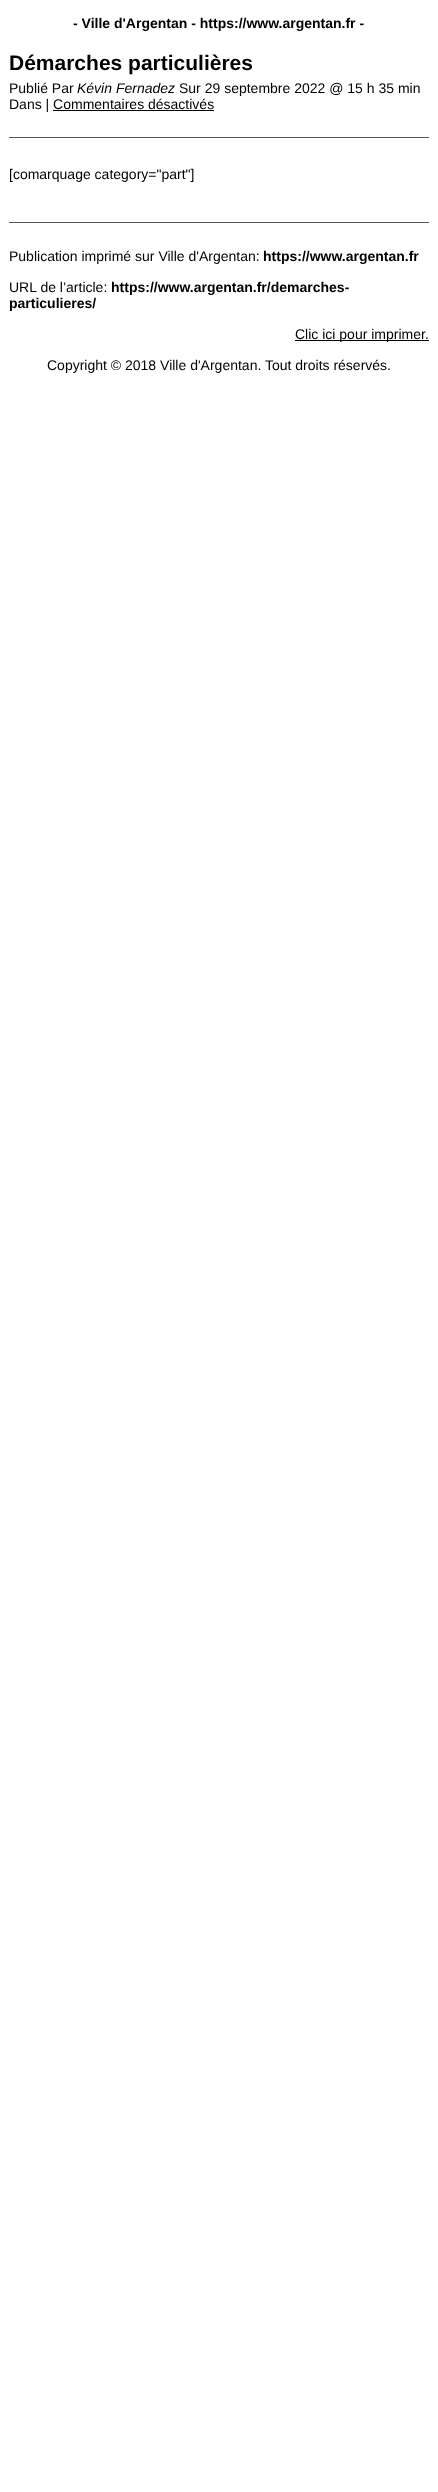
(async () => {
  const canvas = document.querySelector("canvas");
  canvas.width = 438;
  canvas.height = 2492;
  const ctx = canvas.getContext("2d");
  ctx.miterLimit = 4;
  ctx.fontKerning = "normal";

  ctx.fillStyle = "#ffffff";
  ctx.fillRect(0, 0, 438, 2492);
  for (const [x, y, w, h, color] of [
    [9, 137, 420, 1, "#555555"],
    [53, 110, 161, 1, "#000000"],
    [9, 222, 420, 1, "#555555"],
    [295, 340, 134, 1, "#000000"],
  ]) {
    ctx.fillStyle = color;
    ctx.fillRect(x, y, w, h);
  }
  ctx.font = "bold 14px Liberation Sans";
  ctx.fillText("- Ville d'Argentan - https://www.argentan.fr -", 73, 28);
  ctx.font = "bold 21px Liberation Sans";
  ctx.fillText("Démarches particulières", 9, 70);
  ctx.font = "14px Liberation Sans";
  ctx.fillText("Publié Par", 9, 93);
  ctx.font = "italic 14px Liberation Sans";
  ctx.fillText("Kévin Fernadez", 77, 93);
  ctx.font = "14px Liberation Sans";
  for (const [text, x, y] of [
    ["Sur 29 septembre 2022 @ 15 h 35 min", 179, 93],
    ["Dans | Commentaires désactivés", 9, 109],
    ["[comarquage category=\"part\"]", 9, 179],
    ["Publication imprimé sur Ville d'Argentan:", 9, 261],
  ]) {
    ctx.fillText(text, x, y);
  }
  ctx.font = "bold 14px Liberation Sans";
  ctx.fillText("https://www.argentan.fr", 263, 261);
  ctx.font = "14px Liberation Sans";
  ctx.fillText("URL de l’article:", 9, 292);
  ctx.font = "bold 14px Liberation Sans";
  ctx.fillText("https://www.argentan.fr/demarches-", 111, 292);
  ctx.fillText("particulieres/", 9, 308);
  ctx.font = "14px Liberation Sans";
  ctx.fillText("Clic ici pour imprimer.", 295, 339);
  ctx.fillText("Copyright © 2018 Ville d'Argentan. Tout droits réservés.", 47, 370);
})();
